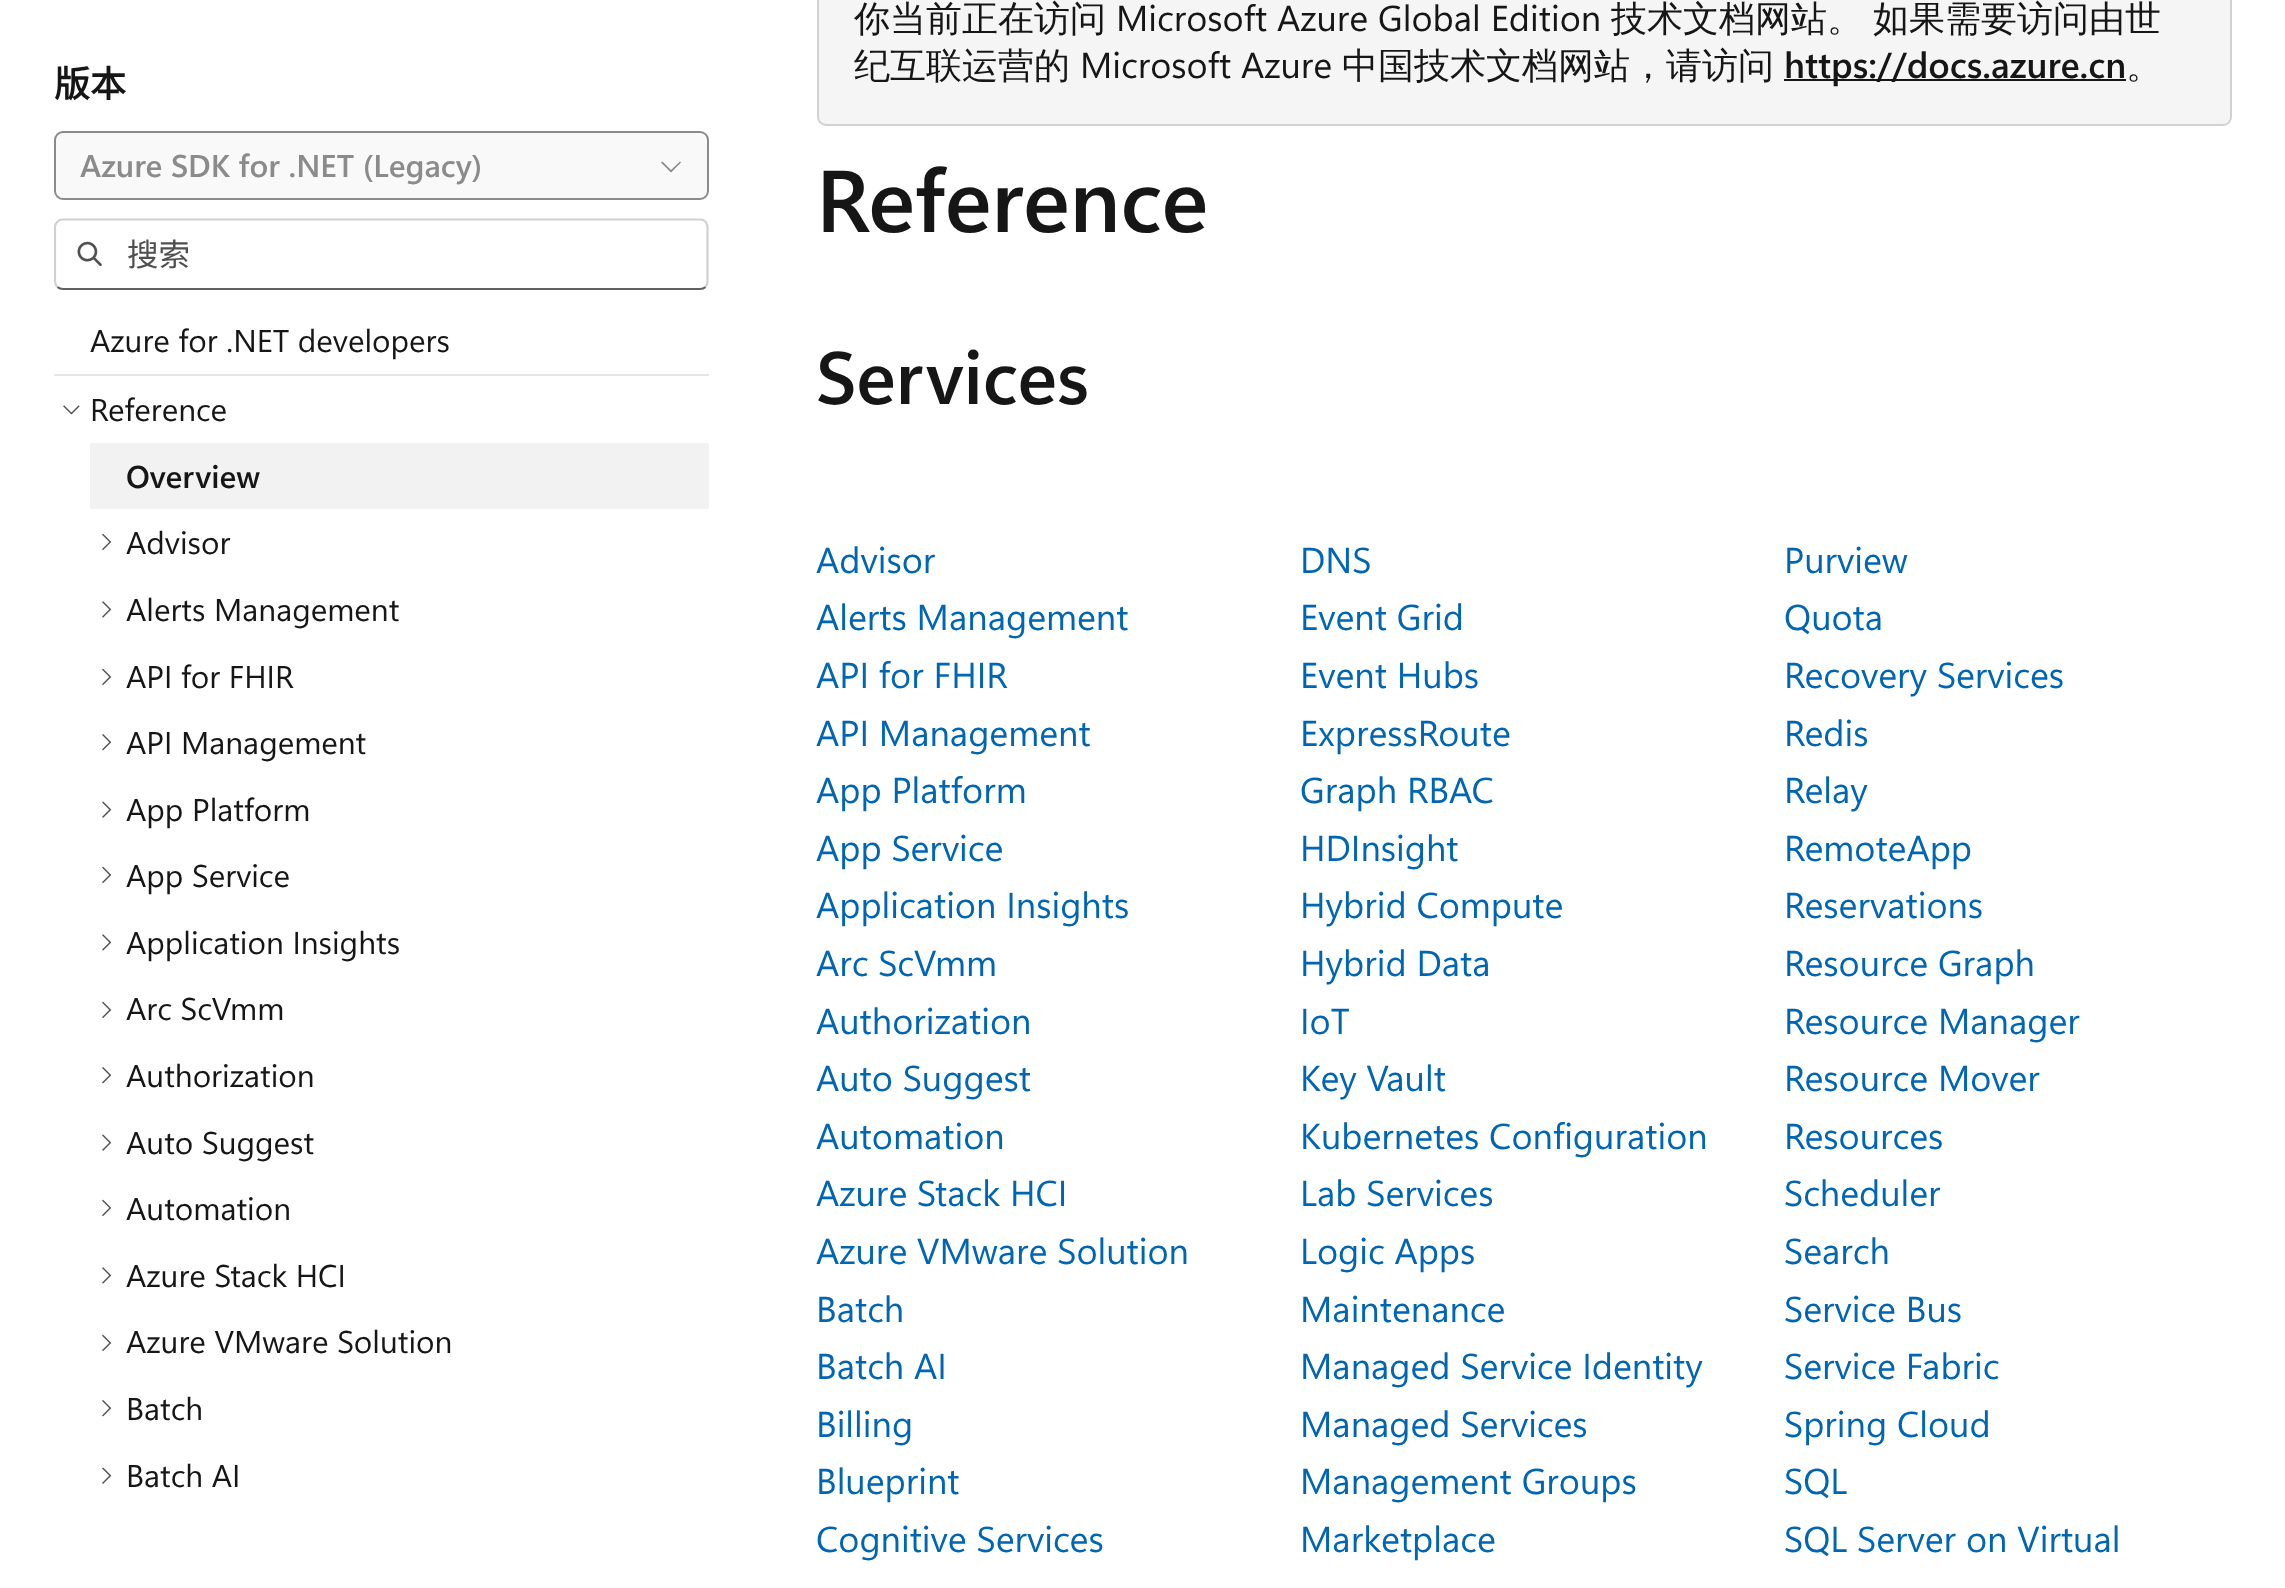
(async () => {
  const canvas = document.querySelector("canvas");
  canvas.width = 2285;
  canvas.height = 1588;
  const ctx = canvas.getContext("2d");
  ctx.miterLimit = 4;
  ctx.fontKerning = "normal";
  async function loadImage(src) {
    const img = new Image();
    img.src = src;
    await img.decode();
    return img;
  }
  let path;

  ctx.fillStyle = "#ffffff";
  ctx.fillRect(0, 0, 2285, 1588);
  ctx.fillStyle = "#f9f9f9";
  ctx.beginPath();
  ctx.roundRect(55, 132, 653, 67, 8);
  ctx.fill();
  ctx.strokeStyle = "#8b8b8b";
  ctx.lineWidth = 2;
  ctx.stroke();
  ctx.fillStyle = "#8b8b8b";
  path = new Path2D("M671 172.5L661 162.5L662.5 161.5L671 170L680 161.5L681 162.5Z");
  ctx.fill(path);
  path = new Path2D("M705.5 287C704 288.5 702 289 700 289H63C61 289 59 288.5 57.5 287");
  ctx.strokeStyle = "#616161";
  ctx.lineWidth = 2.2;
  ctx.stroke(path);
  path = new Path2D("M57.5 287C56 285.5 55 283.5 55 281V227C55 225 56 223 57.5 221.5C59 220 61 219.5 63 219.5H700C702 219.5 704 220 705.5 221.5C707 223 707.5 225 707.5 227V281C707.5 283.5 707 285.5 705.5 287");
  ctx.strokeStyle = "#d1d1d1";
  ctx.stroke(path);
  ctx.drawImage(await loadImage("img/1.png"), 77, 241, 25, 26);
  ctx.fillStyle = "#e6e6e6";
  ctx.fillRect(54, 374, 655, 2);
  ctx.drawImage(await loadImage("img/2.png"), 63, 405, 17, 10);
  ctx.fillStyle = "#f2f2f2";
  ctx.fillRect(90, 443, 619, 66);
  ctx.drawImage(await loadImage("img/3.png"), 102, 533, 10, 18);
  ctx.drawImage(await loadImage("img/4.png"), 102, 601, 10, 17);
  ctx.drawImage(await loadImage("img/3.png"), 102, 668, 10, 18);
  ctx.drawImage(await loadImage("img/5.png"), 102, 734, 10, 17);
  ctx.drawImage(await loadImage("img/6.png"), 102, 801, 10, 17);
  ctx.drawImage(await loadImage("img/3.png"), 102, 866, 10, 18);
  ctx.drawImage(await loadImage("img/4.png"), 102, 934, 10, 17);
  ctx.drawImage(await loadImage("img/3.png"), 102, 1001, 10, 18);
  ctx.drawImage(await loadImage("img/5.png"), 102, 1067, 10, 17);
  ctx.drawImage(await loadImage("img/6.png"), 102, 1134, 10, 17);
  ctx.drawImage(await loadImage("img/3.png"), 102, 1199, 10, 18);
  ctx.drawImage(await loadImage("img/4.png"), 102, 1267, 10, 17);
  ctx.drawImage(await loadImage("img/3.png"), 102, 1334, 10, 18);
  ctx.drawImage(await loadImage("img/5.png"), 102, 1400, 10, 17);
  ctx.drawImage(await loadImage("img/6.png"), 102, 1467, 10, 17);
  ctx.fillStyle = "#f5f5f5";
  ctx.beginPath();
  ctx.roundRect(818, -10, 1413, 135, 8);
  ctx.fill();
  ctx.lineWidth = 2;
  ctx.stroke();
  ctx.fillStyle = "#161616";
  ctx.fillRect(1784, 79, 342, 2);
  ctx.font = "bold 36px Noto Sans CJK SC";
  ctx.fillText("版本", 54, 97);
  ctx.font = "600 31.5px Segoe UI";
  ctx.fillStyle = "#8b8b8b";
  ctx.fillText("Azure SDK for .NET (Legacy)", 80, 177);
  ctx.font = "31.5px Noto Sans CJK SC";
  ctx.fillStyle = "#505050";
  ctx.fillText("搜索", 127, 266);
  ctx.font = "31.5px Segoe UI";
  ctx.fillStyle = "#161616";
  ctx.fillText("Azure for .NET developers", 90, 352);
  ctx.fillText("Reference", 90, 421);
  ctx.font = "600 31.5px Segoe UI";
  ctx.fillText("Overview", 126, 488);
  ctx.font = "31.5px Segoe UI";
  for (const [text, x, y] of [
    ["Advisor", 126, 554],
    ["Alerts Management", 126, 621],
    ["API for FHIR", 126, 688],
    ["API Management", 126, 754],
    ["App Platform", 126, 821],
    ["App Service", 126, 887],
    ["Application Insights", 126, 954],
    ["Arc ScVmm", 126, 1020],
    ["Authorization", 126, 1087],
    ["Auto Suggest", 126, 1154],
    ["Automation", 126, 1220],
    ["Azure Stack HCI", 126, 1287],
    ["Azure VMware Solution", 126, 1353],
    ["Batch", 126, 1420],
    ["Batch AI", 126, 1487],
  ]) {
    ctx.fillText(text, x, y);
  }
  ctx.font = "500 36px WenQuanYi Zen Hei";
  ctx.fillText("你当前正在访问", 854, 31);
  ctx.font = "36px Segoe UI";
  ctx.fillText("Microsoft Azure Global Edition", 1116, 31);
  ctx.font = "500 36px WenQuanYi Zen Hei";
  for (const [text, x, y] of [
    ["技术文档网站。", 1611, 31],
    ["如果需要访问由世", 1873, 31],
    ["纪互联运营的", 854, 78],
  ]) {
    ctx.fillText(text, x, y);
  }
  ctx.font = "36px Segoe UI";
  ctx.fillText("Microsoft Azure", 1080, 78);
  ctx.font = "500 36px WenQuanYi Zen Hei";
  ctx.fillText("中国技术文档网站，请访问", 1342, 78);
  ctx.font = "600 36px Segoe UI";
  ctx.fillText("https://docs.azure.cn", 1784, 78);
  ctx.font = "500 36px WenQuanYi Zen Hei";
  ctx.fillText("。", 2126, 78);
  ctx.font = "600 87.5px Segoe UI";
  ctx.fillText("Reference", 816, 232);
  ctx.font = "600 74px Segoe UI";
  ctx.fillText("Services", 816, 404);
  ctx.font = "36px Segoe UI";
  ctx.fillStyle = "#0065b3";
  for (const [text, x, y] of [
    ["Advisor", 816, 573],
    ["DNS", 1300, 573],
    ["Purview", 1784, 573],
    ["Alerts Management", 816, 630],
    ["Event Grid", 1300, 630],
    ["Quota", 1784, 630],
    ["API for FHIR", 816, 688],
    ["Event Hubs", 1300, 688],
    ["Recovery Services", 1784, 688],
    ["API Management", 816, 746],
    ["ExpressRoute", 1300, 746],
    ["Redis", 1784, 746],
    ["App Platform", 816, 803],
    ["Graph RBAC", 1300, 803],
    ["Relay", 1784, 803],
    ["App Service", 816, 861],
    ["HDInsight", 1300, 861],
    ["RemoteApp", 1784, 861],
    ["Application Insights", 816, 918],
    ["Hybrid Compute", 1300, 918],
    ["Reservations", 1784, 918],
    ["Arc ScVmm", 816, 976],
    ["Hybrid Data", 1300, 976],
    ["Resource Graph", 1784, 976],
    ["Authorization", 816, 1034],
    ["IoT", 1300, 1034],
    ["Resource Manager", 1784, 1034],
    ["Auto Suggest", 816, 1091],
    ["Key Vault", 1300, 1091],
    ["Resource Mover", 1784, 1091],
    ["Automation", 816, 1149],
    ["Kubernetes Configuration", 1300, 1149],
    ["Resources", 1784, 1149],
    ["Azure Stack HCI", 816, 1206],
    ["Lab Services", 1300, 1206],
    ["Scheduler", 1784, 1206],
    ["Azure VMware Solution", 816, 1264],
    ["Logic Apps", 1300, 1264],
    ["Search", 1784, 1264],
    ["Batch", 816, 1322],
    ["Maintenance", 1300, 1322],
    ["Service Bus", 1784, 1322],
    ["Batch AI", 816, 1379],
    ["Managed Service Identity", 1300, 1379],
    ["Service Fabric", 1784, 1379],
    ["Billing", 816, 1437],
    ["Managed Services", 1300, 1437],
    ["Spring Cloud", 1784, 1437],
    ["Blueprint", 816, 1494],
    ["Management Groups", 1300, 1494],
    ["SQL", 1784, 1494],
    ["Cognitive Services", 816, 1552],
    ["Marketplace", 1300, 1552],
    ["SQL Server on Virtual", 1784, 1552],
  ]) {
    ctx.fillText(text, x, y);
  }
})();
